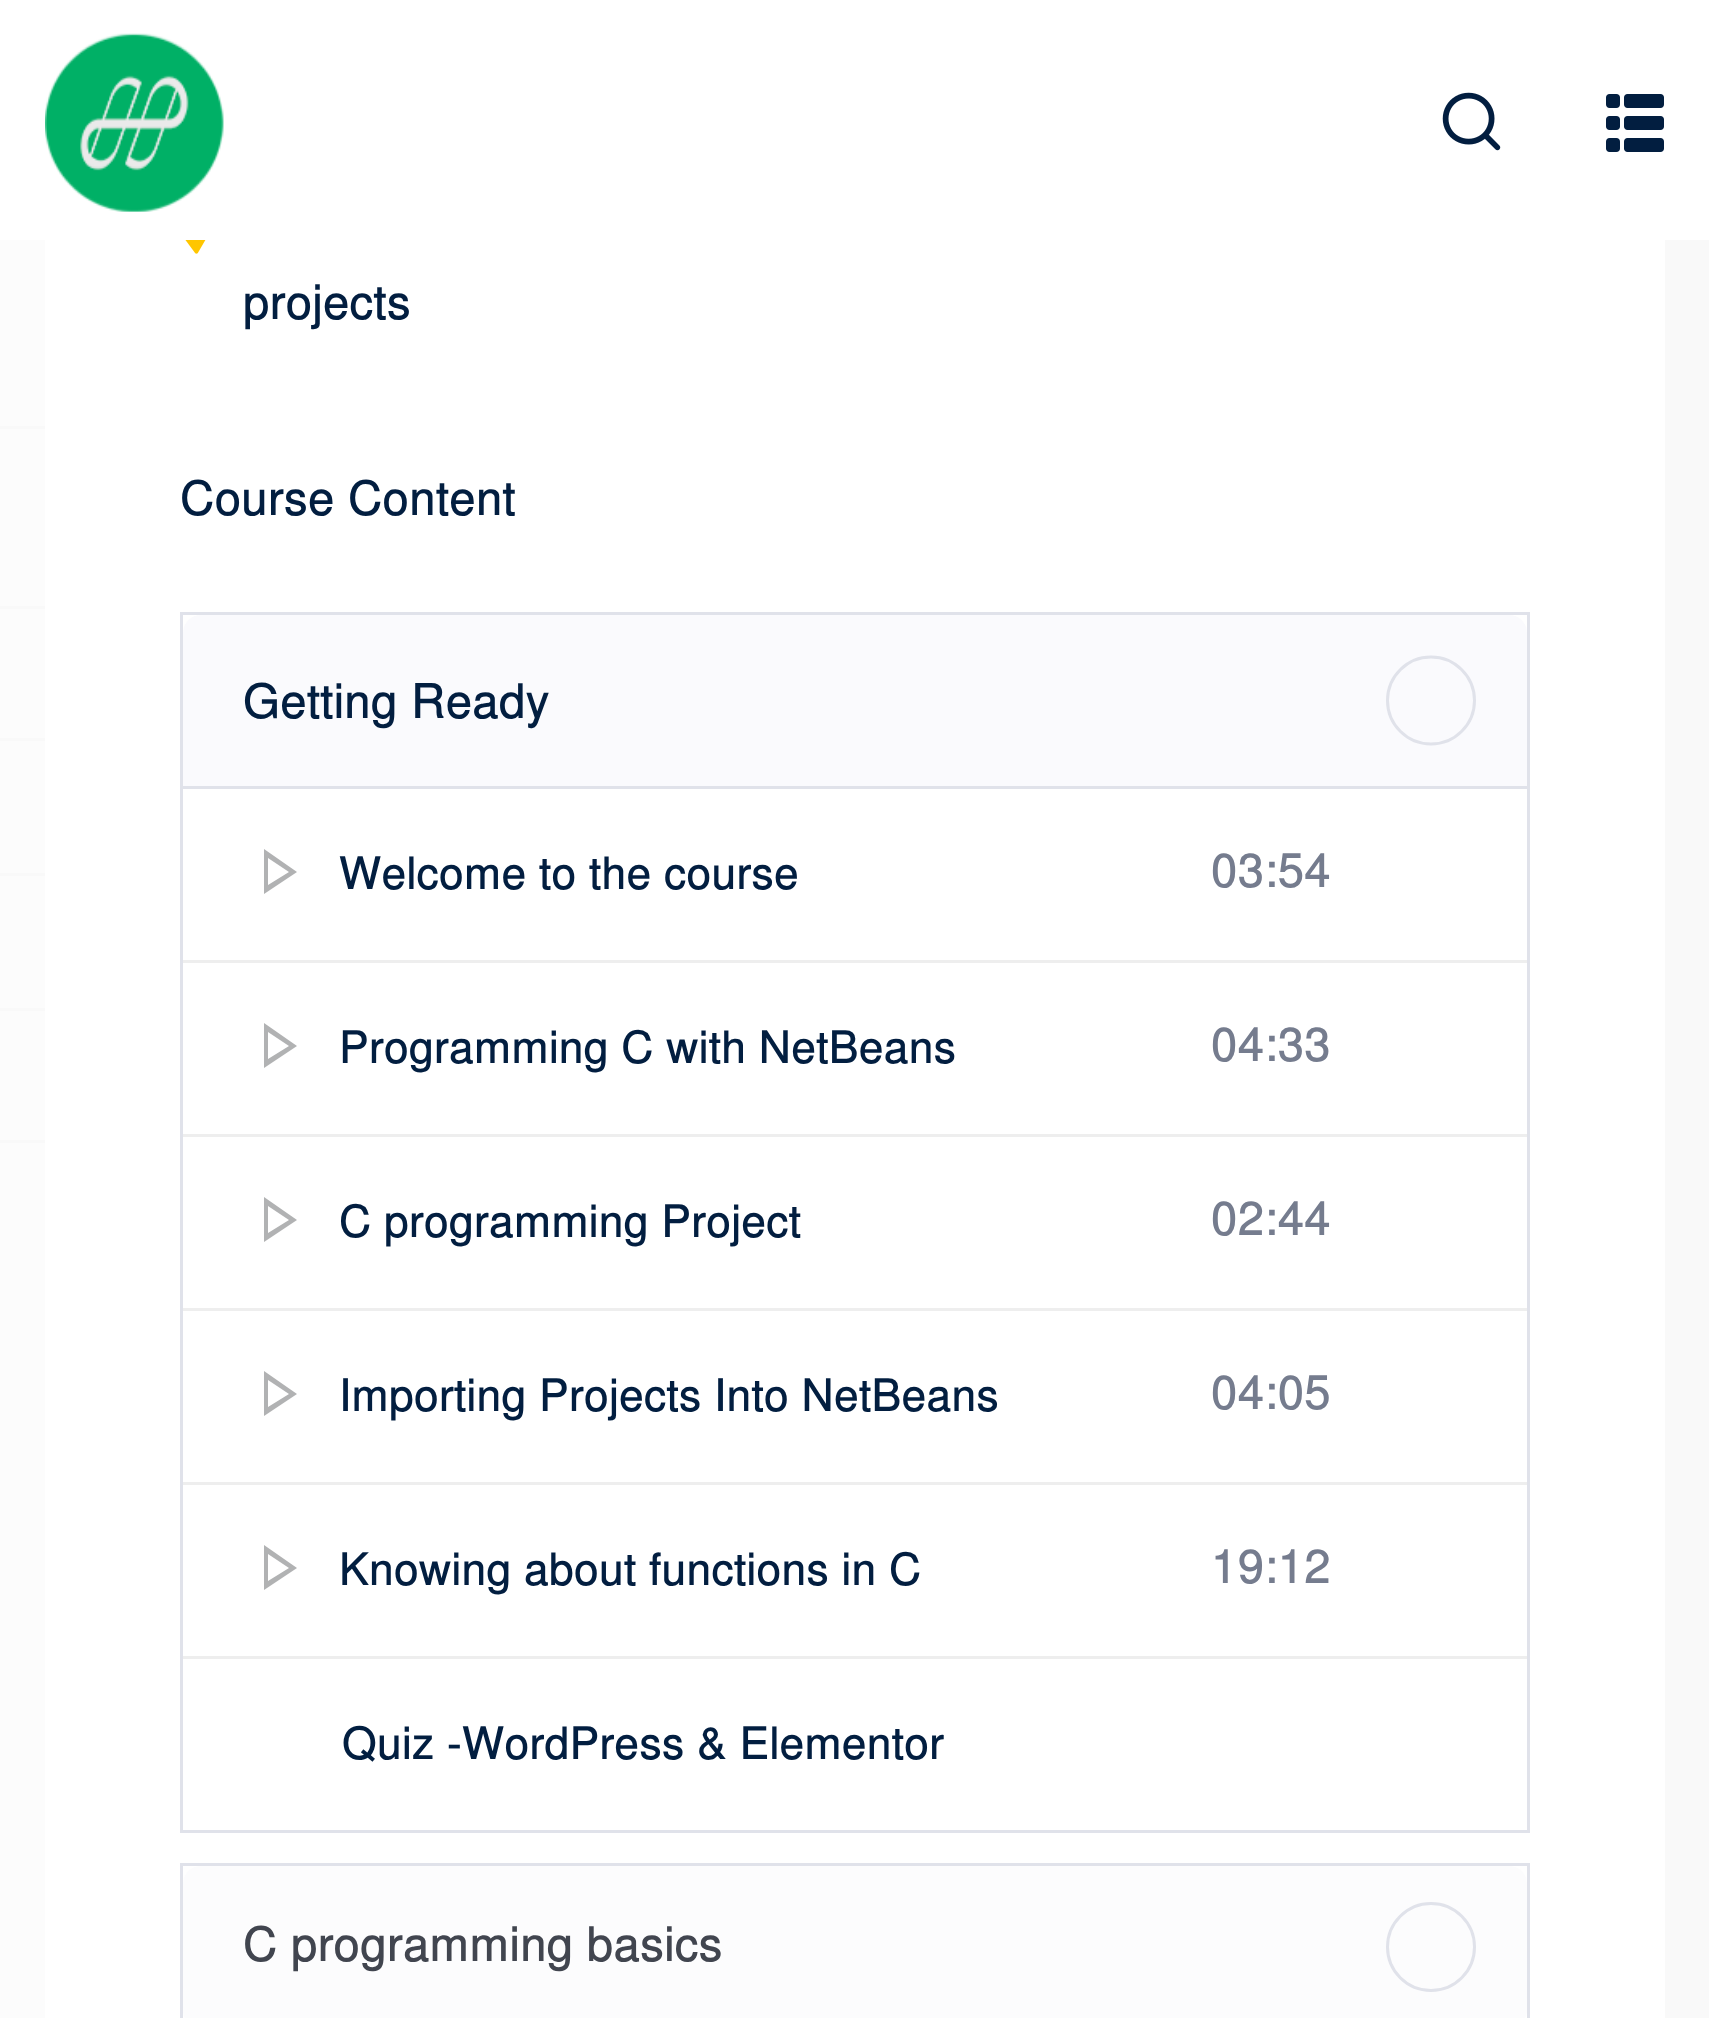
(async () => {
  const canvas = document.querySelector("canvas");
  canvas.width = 1709;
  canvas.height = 2018;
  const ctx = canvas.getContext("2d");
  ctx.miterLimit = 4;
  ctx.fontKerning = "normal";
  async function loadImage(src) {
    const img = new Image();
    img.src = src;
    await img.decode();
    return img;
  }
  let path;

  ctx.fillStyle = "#f9f9f9";
  ctx.fillRect(0, 0, 1709, 2018);
  ctx.fillStyle = "#ffffff";
  ctx.fillRect(0, 0, 1709, 240);
  ctx.drawImage(await loadImage("img/1.png"), 45, 33, 179, 179);
  ctx.drawImage(await loadImage("img/2.png"), 1442, 92, 59, 59);
  ctx.drawImage(await loadImage("img/3.png"), 1606, 94, 58, 58);
  for (const [x, y, w, h, color] of [
    [0, 240, 45, 1778, "#fcfcfc"],
    [0, 426, 45, 3, "#f9f9f9"],
    [0, 606, 45, 3, "#f9f9f9"],
    [0, 738, 45, 3, "#f9f9f9"],
    [0, 873, 45, 3, "#f9f9f9"],
    [0, 1008, 45, 3, "#f9f9f9"],
    [0, 1140, 45, 3, "#f9f9f9"],
    [45, 240, 1620, 1778, "#ffffff"],
  ]) {
    ctx.fillStyle = color;
    ctx.fillRect(x, y, w, h);
  }
  ctx.drawImage(await loadImage("img/4.png"), 185, 240, 21, 14);
  ctx.strokeStyle = "#e0e2ea";
  ctx.lineWidth = 3;
  ctx.strokeRect(181.5, 613.5, 1347, 1218);
  ctx.fillStyle = "#fafafd";
  ctx.beginPath();
  ctx.roundRect(183, 615, 1344, 171, [18, 18, 0, 0]);
  ctx.fill();
  path = new Path2D("M1387.5 700.5C1387.5 676.5 1407 657 1431 657C1455 657 1474.5 676.5 1474.5 700.5C1474.5 724.5 1455 744 1431 744C1407 744 1387.5 724.5 1387.5 700.5Z");
  ctx.stroke(path);
  ctx.fillStyle = "#e0e2ea";
  ctx.fillRect(183, 786, 1344, 3);
  ctx.fillStyle = "#eeeeee";
  ctx.fillRect(183, 960, 1344, 3);
  ctx.fillStyle = "#b1b2b3";
  path = new Path2D("M264 849V894L297 872ZM268 858L289 872L268 885Z");
  ctx.fill(path);
  ctx.fillStyle = "#eeeeee";
  ctx.fillRect(183, 1134, 1344, 3);
  ctx.fillStyle = "#b1b2b3";
  path = new Path2D("M264 1023V1068L297 1046ZM268 1032L289 1046L268 1059Z");
  ctx.fill(path);
  ctx.fillStyle = "#eeeeee";
  ctx.fillRect(183, 1308, 1344, 3);
  ctx.fillStyle = "#b1b2b3";
  path = new Path2D("M264 1197V1242L297 1220ZM268 1206L289 1220L268 1233Z");
  ctx.fill(path);
  ctx.fillStyle = "#eeeeee";
  ctx.fillRect(183, 1482, 1344, 3);
  ctx.fillStyle = "#b1b2b3";
  path = new Path2D("M264 1371V1416L297 1394ZM268 1380L289 1394L268 1407Z");
  ctx.fill(path);
  ctx.fillStyle = "#eeeeee";
  ctx.fillRect(183, 1656, 1344, 3);
  ctx.fillStyle = "#b1b2b3";
  path = new Path2D("M264 1545V1590L297 1568ZM268 1554L289 1568L268 1581Z");
  ctx.fill(path);
  ctx.strokeRect(181.5, 1864.5, 1347, 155);
  ctx.fillStyle = "#fcfcfd";
  ctx.beginPath();
  ctx.roundRect(183, 1866, 1344, 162, 18);
  ctx.fill();
  ctx.beginPath();
  ctx.arc(1431, 1947, 43.5, 0, Math.PI * 2);
  ctx.stroke();
  ctx.font = "bold 48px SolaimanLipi";
  ctx.fillStyle = "#021e40";
  for (const [text, x, y] of [
    ["projects", 243, 319],
    ["Course Content", 180, 515],
    ["Getting Ready", 243, 718],
  ]) {
    ctx.fillText(text, x, y);
  }
  ctx.font = "bold 45px SolaimanLipi";
  ctx.fillText("Welcome to the course", 339, 889);
  ctx.font = "bold 48px SolaimanLipi";
  ctx.fillStyle = "#757c8e";
  ctx.fillText("03:54", 1211, 887);
  ctx.font = "bold 45px SolaimanLipi";
  ctx.fillStyle = "#021e40";
  ctx.fillText("Programming C with NetBeans", 339, 1063);
  ctx.font = "bold 48px SolaimanLipi";
  ctx.fillStyle = "#757c8e";
  ctx.fillText("04:33", 1211, 1061);
  ctx.font = "bold 45px SolaimanLipi";
  ctx.fillStyle = "#021e40";
  ctx.fillText("C programming Project", 339, 1237);
  ctx.font = "bold 48px SolaimanLipi";
  ctx.fillStyle = "#757c8e";
  ctx.fillText("02:44", 1211, 1235);
  ctx.font = "bold 45px SolaimanLipi";
  ctx.fillStyle = "#021e40";
  ctx.fillText("Importing Projects Into NetBeans", 339, 1411);
  ctx.font = "bold 48px SolaimanLipi";
  ctx.fillStyle = "#757c8e";
  ctx.fillText("04:05", 1211, 1409);
  ctx.font = "bold 45px SolaimanLipi";
  ctx.fillStyle = "#021e40";
  ctx.fillText("Knowing about functions in C", 339, 1585);
  ctx.font = "bold 48px SolaimanLipi";
  ctx.fillStyle = "#757c8e";
  ctx.fillText("19:12", 1211, 1583);
  ctx.font = "bold 45px SolaimanLipi";
  ctx.fillStyle = "#021e40";
  ctx.fillText("Quiz -WordPress & Elementor", 342, 1759);
  ctx.font = "bold 48px SolaimanLipi";
  ctx.fillStyle = "#41454f";
  ctx.fillText("C programming basics", 243, 1961);
})();
